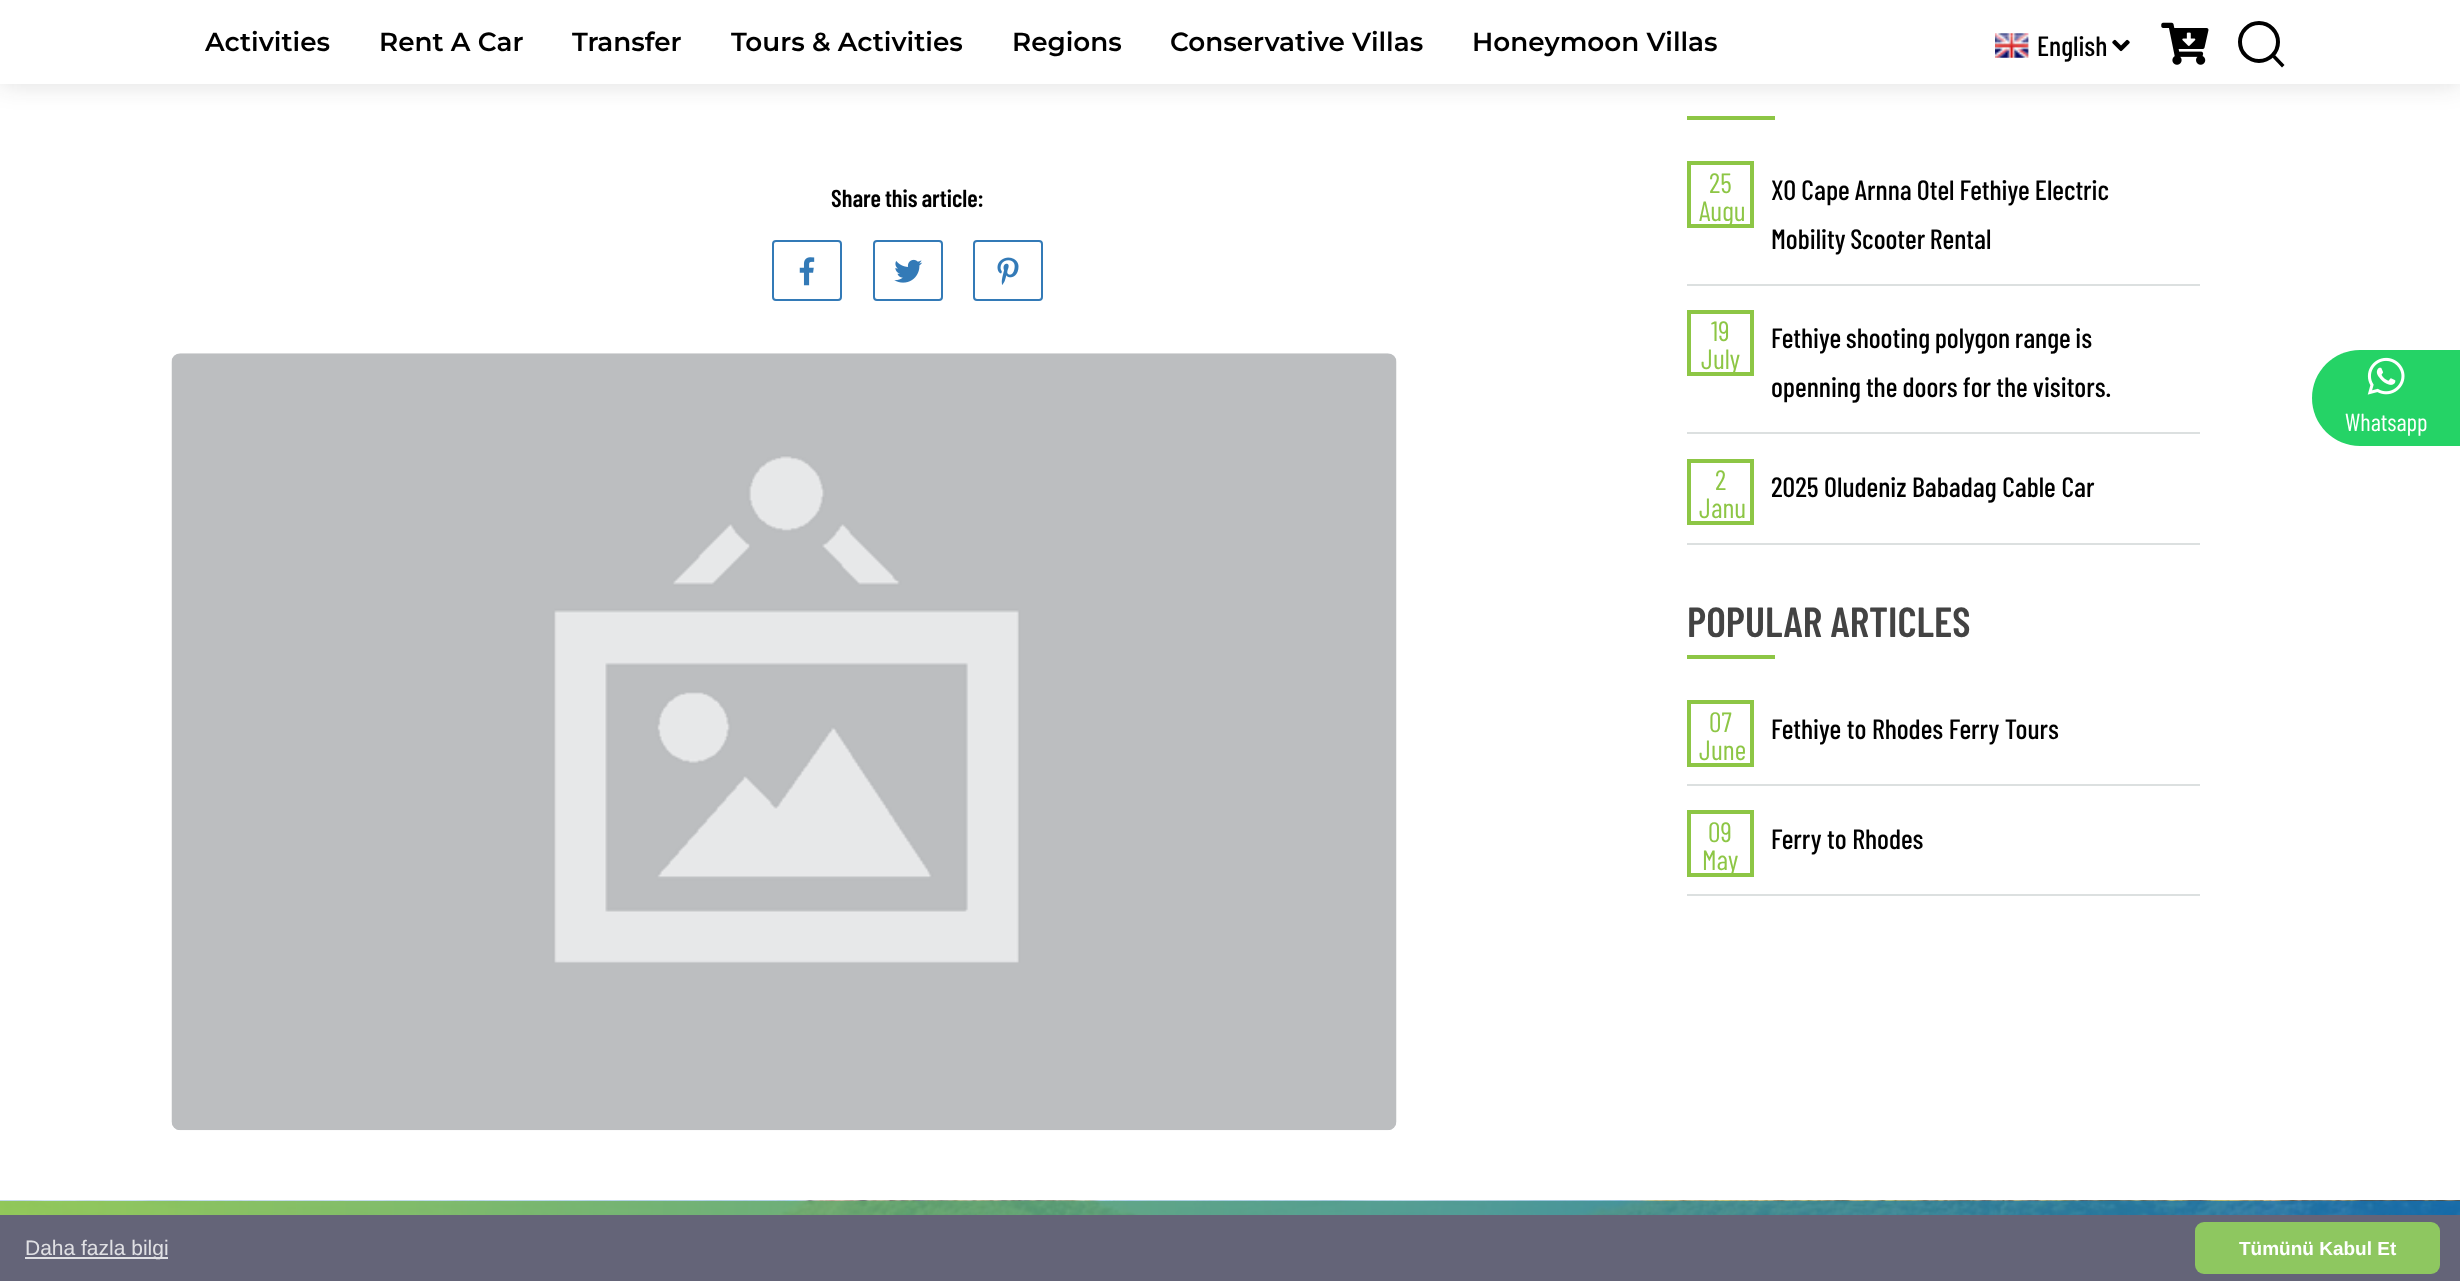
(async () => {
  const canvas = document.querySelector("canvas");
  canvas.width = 2460;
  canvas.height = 1281;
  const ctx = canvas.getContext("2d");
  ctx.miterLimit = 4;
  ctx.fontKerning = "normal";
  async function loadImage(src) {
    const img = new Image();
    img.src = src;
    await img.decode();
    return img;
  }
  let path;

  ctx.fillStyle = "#ffffff";
  ctx.fillRect(0, 0, 2460, 1281);
  ctx.fillStyle = "#8dc645";
  ctx.fillRect(1687, 116, 88, 4);
  ctx.fillStyle = "rgba(24, 24, 24, 0.15)";
  ctx.filter = "blur(13px)";
  ctx.beginPath();
  ctx.rect(0, 0, 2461, 84);
  ctx.fill();
  ctx.filter = "none";
  ctx.fillStyle = "#ffffff";
  ctx.fillRect(0, 0, 2460, 84);
  ctx.drawImage(await loadImage("img/1.png"), 1995, 33, 34, 25);
  ctx.drawImage(await loadImage("img/2.png"), 2112, 39, 18, 13);
  ctx.drawImage(await loadImage("img/3.png"), 2161, 22, 48, 43);
  ctx.beginPath();
  ctx.arc(2259, 42, 19, 0, Math.PI * 2);
  ctx.strokeStyle = "#000000";
  ctx.lineWidth = 4;
  ctx.stroke();
  ctx.fillStyle = "#000000";
  path = new Path2D("M2272.5 57.5L2275 55L2284.5 65L2282 67.5Z");
  ctx.fill(path);
  ctx.beginPath();
  ctx.roundRect(773, 241, 68, 59, 3);
  ctx.strokeStyle = "#337ab7";
  ctx.lineWidth = 2;
  ctx.stroke();
  ctx.drawImage(await loadImage("img/4.png"), 799, 257, 16, 29);
  ctx.beginPath();
  ctx.roundRect(874, 241, 68, 59, 3);
  ctx.stroke();
  ctx.drawImage(await loadImage("img/5.png"), 894, 259, 29, 24);
  ctx.beginPath();
  ctx.roundRect(974, 241, 68, 59, 3);
  ctx.stroke();
  ctx.drawImage(await loadImage("img/6.png"), 997, 257, 22, 28);
  ctx.drawImage(await loadImage("img/7.png"), 171, 353, 1226, 778);
  ctx.fillStyle = "#dce0e0";
  ctx.fillRect(1687, 284, 513, 2);
  ctx.strokeStyle = "#8dc645";
  ctx.lineWidth = 4;
  ctx.strokeRect(1689, 163, 63, 63);
  ctx.fillRect(1687, 432, 513, 2);
  ctx.strokeRect(1689, 312, 63, 62);
  ctx.fillRect(1687, 543, 513, 2);
  ctx.strokeRect(1689, 461, 63, 62);
  ctx.fillStyle = "#8dc645";
  ctx.fillRect(1687, 655, 88, 4);
  ctx.fillStyle = "#dce0e0";
  ctx.fillRect(1687, 784, 513, 2);
  ctx.strokeRect(1689, 702, 63, 63);
  ctx.fillRect(1687, 894, 513, 2);
  ctx.strokeRect(1689, 812, 63, 63);
  ctx.fillStyle = "#25d366";
  path = new Path2D("M2360 350H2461V446H2360C2333.5 446 2312 424.5 2312 398C2312 371.5 2333.5 350 2360 350Z");
  ctx.fill(path);
  ctx.drawImage(await loadImage("img/8.png"), 2367, 357, 38, 38);
  ctx.drawImage(await loadImage("img/9.png"), 0, 1200, 2460, 15);
  ctx.fillStyle = "#646478";
  ctx.fillRect(0, 1215, 2460, 66);
  ctx.fillStyle = "#e0e0e4";
  ctx.fillRect(25, 1257, 143, 2);
  ctx.fillStyle = "#8ec760";
  ctx.beginPath();
  ctx.roundRect(2195, 1222, 245, 52, 9);
  ctx.fill();
  ctx.font = "600 26.25px Montserrat";
  ctx.fillStyle = "#000000";
  for (const [text, x, y] of [
    ["Activities", 205, 51],
    ["Rent A Car", 379, 51],
    ["Transfer", 572, 51],
    ["Tours & Activities", 731, 51],
    ["Regions", 1012, 51],
    ["Conservative Villas", 1170, 51],
    ["Honeymoon Villas", 1472, 51],
  ]) {
    ctx.fillText(text, x, y);
  }
  ctx.font = "500 28px Barlow Condensed";
  ctx.fillText("English", 2037, 56);
  ctx.wordSpacing = "-1px";
  ctx.font = "600 24.5px Barlow Condensed";
  ctx.fillText("Share this article:", 831, 207);
  ctx.wordSpacing = "0px";
  ctx.font = "28px Barlow Condensed";
  ctx.fillStyle = "#8dc645";
  ctx.fillText("25", 1709, 193);
  ctx.fillText("Augu", 1699, 221);
  ctx.wordSpacing = "-0.5px";
  ctx.font = "500 28px Barlow Condensed";
  ctx.fillStyle = "#000000";
  ctx.fillText("XO Cape Arnna Otel Fethiye Electric", 1771, 200);
  ctx.wordSpacing = "-1px";
  ctx.fillText("Mobility Scooter Rental", 1771, 249);
  ctx.wordSpacing = "0px";
  ctx.font = "28px Barlow Condensed";
  ctx.fillStyle = "#8dc645";
  ctx.fillText("19", 1711, 341);
  ctx.fillText("July", 1701, 369);
  ctx.wordSpacing = "-1px";
  ctx.font = "500 28px Barlow Condensed";
  ctx.fillStyle = "#000000";
  ctx.fillText("Fethiye shooting polygon range is", 1771, 348);
  ctx.wordSpacing = "-0.5px";
  ctx.fillText("openning the doors for the visitors.", 1771, 397);
  ctx.wordSpacing = "0px";
  ctx.font = "28px Barlow Condensed";
  ctx.fillStyle = "#8dc645";
  ctx.fillText("2", 1715, 490);
  ctx.fillText("Janu", 1699, 518);
  ctx.font = "500 28px Barlow Condensed";
  ctx.fillStyle = "#000000";
  ctx.fillText("2025 Oludeniz Babadag Cable Car", 1771, 497);
  ctx.font = "600 42px Barlow Condensed";
  ctx.fillStyle = "#434343";
  ctx.fillText("POPULAR ARTICLES", 1687, 637);
  ctx.font = "28px Barlow Condensed";
  ctx.fillStyle = "#8dc645";
  ctx.fillText("07", 1709, 732);
  ctx.fillText("June", 1699, 760);
  ctx.font = "500 28px Barlow Condensed";
  ctx.fillStyle = "#000000";
  ctx.fillText("Fethiye to Rhodes Ferry Tours", 1771, 739);
  ctx.font = "28px Barlow Condensed";
  ctx.fillStyle = "#8dc645";
  ctx.fillText("09", 1708, 842);
  ctx.fillText("May", 1702, 870);
  ctx.font = "500 28px Barlow Condensed";
  ctx.fillStyle = "#000000";
  ctx.fillText("Ferry to Rhodes", 1771, 849);
  ctx.font = "24.5px Barlow Condensed";
  ctx.fillStyle = "#ffffff";
  ctx.fillText("Whatsapp", 2345, 431);
  ctx.font = "21px Liberation Sans";
  ctx.fillStyle = "#e0e0e4";
  ctx.fillText("Daha fazla bilgi", 25, 1255);
  ctx.font = "bold 19px Liberation Sans";
  ctx.fillStyle = "#ffffff";
  ctx.fillText("Tümünü Kabul Et", 2239, 1255);
})();
